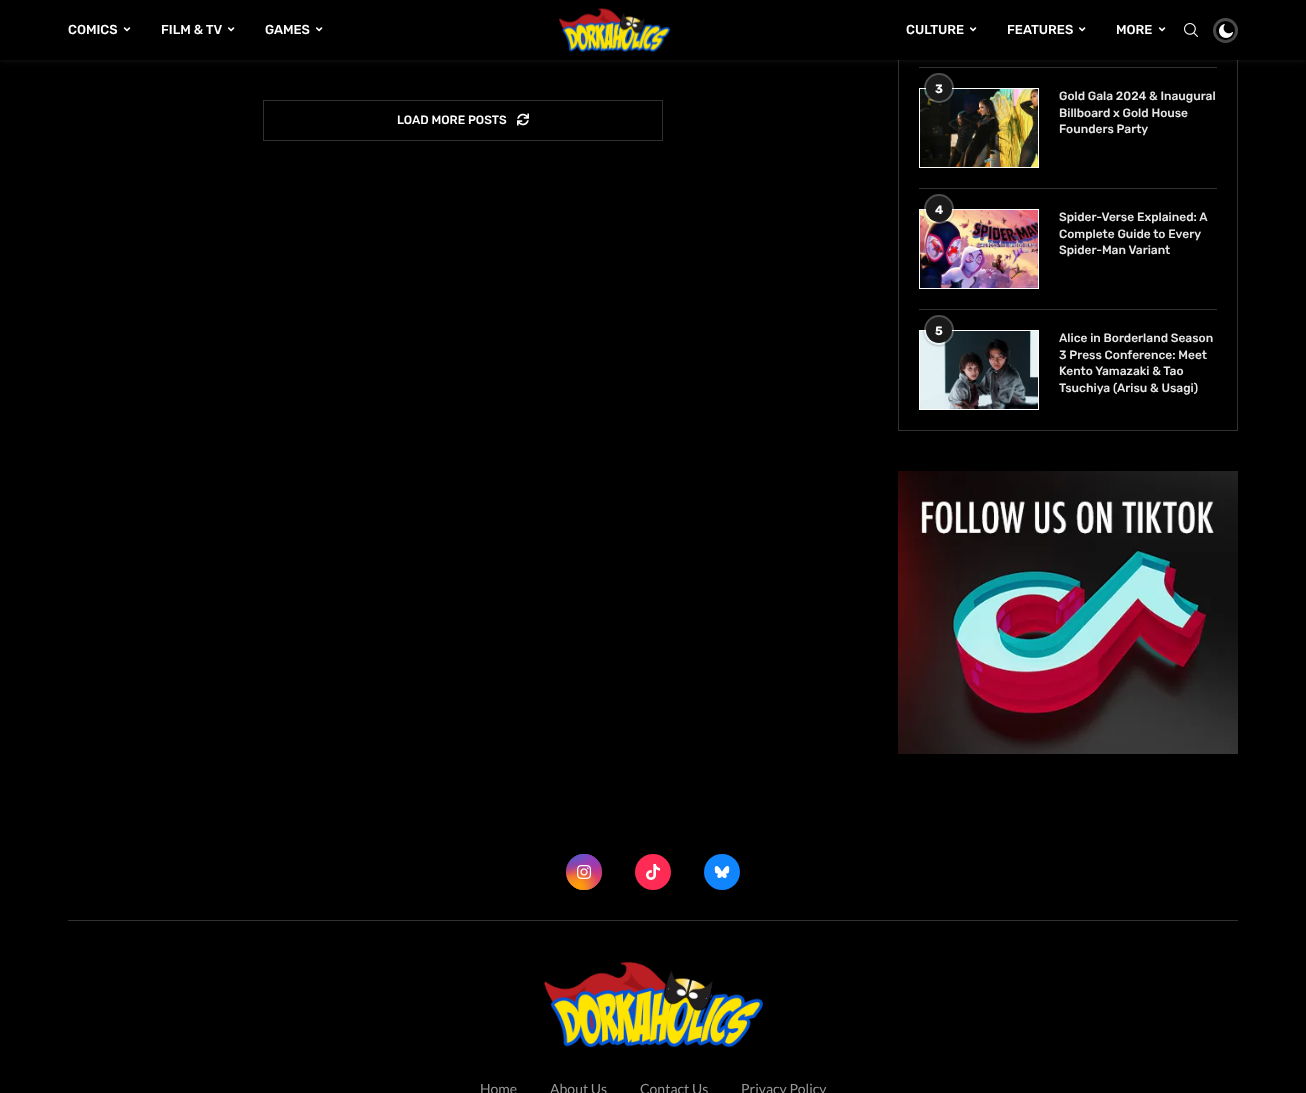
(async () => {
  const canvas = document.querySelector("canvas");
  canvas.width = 1306;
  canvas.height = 1093;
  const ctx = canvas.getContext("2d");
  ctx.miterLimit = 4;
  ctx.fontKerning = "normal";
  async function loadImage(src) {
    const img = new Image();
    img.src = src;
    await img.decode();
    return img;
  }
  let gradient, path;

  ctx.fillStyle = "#000000";
  ctx.fillRect(0, 0, 1306, 1093);
  ctx.strokeStyle = "#313131";
  ctx.strokeRect(898.5, -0.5, 339, 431);
  ctx.fillStyle = "#313131";
  ctx.fillRect(919, 67, 298, 1);
  ctx.fillStyle = "rgba(255, 255, 255, 0.08)";
  ctx.filter = "blur(2.5px)";
  ctx.beginPath();
  ctx.rect(0, 1, 1306, 60);
  ctx.fill();
  ctx.filter = "none";
  ctx.fillStyle = "#000000";
  ctx.fillRect(0, 0, 1306, 60);
  ctx.drawImage(await loadImage("img/1.png"), 123, 27, 8, 5);
  ctx.drawImage(await loadImage("img/2.png"), 227, 27, 8, 5);
  ctx.drawImage(await loadImage("img/3.png"), 315, 27, 8, 5);
  ctx.drawImage(await loadImage("img/4.png"), 559, 8, 111, 45);
  ctx.drawImage(await loadImage("img/5.png"), 969, 27, 8, 5);
  ctx.drawImage(await loadImage("img/6.png"), 1078, 27, 8, 5);
  ctx.drawImage(await loadImage("img/7.png"), 1158, 27, 8, 5);
  ctx.drawImage(await loadImage("img/8.png"), 1184, 23, 14, 14);
  ctx.fillStyle = "#4d4d4d";
  ctx.beginPath();
  ctx.arc(1225.5, 30.5, 12.5, 0, Math.PI * 2);
  ctx.fill();
  ctx.fillStyle = "rgba(0, 0, 0, 0.3)";
  ctx.filter = "blur(1.5px)";
  ctx.beginPath();
  ctx.roundRect(1216, 22, 19, 19, 9.5);
  ctx.fill();
  ctx.filter = "none";
  ctx.fillStyle = "#000000";
  ctx.beginPath();
  ctx.arc(1225.5, 30.5, 9.5, 0, Math.PI * 2);
  ctx.fill();
  ctx.drawImage(await loadImage("img/9.png"), 1219, 24, 14, 14);
  ctx.strokeRect(263.5, 100.5, 399, 40);
  ctx.drawImage(await loadImage("img/10.png"), 517, 113, 12, 13);
  ctx.fillStyle = "#313131";
  ctx.fillRect(919, 188, 298, 1);
  ctx.drawImage(await loadImage("img/11.png"), 920, 89, 118, 78);
  ctx.strokeStyle = "#ffffff";
  ctx.strokeRect(919.5, 88.5, 119, 79);
  ctx.save();
  path = new Path2D("M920 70H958V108H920ZM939 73C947.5 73 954 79.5 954 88C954 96.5 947.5 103 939 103C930.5 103 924 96.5 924 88C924 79.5 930.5 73 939 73Z");
  ctx.clip(path, "evenodd");
  ctx.fillStyle = "rgba(0, 0, 0, 0.25)";
  ctx.filter = "blur(1px)";
  ctx.beginPath();
  ctx.roundRect(924, 74, 30, 30, 15);
  ctx.fill();
  ctx.filter = "none";
  ctx.restore();
  ctx.fillStyle = "rgba(255, 255, 255, 0.3)";
  ctx.beginPath();
  ctx.arc(939, 88, 15, 0, Math.PI * 2);
  ctx.fill();
  ctx.fillStyle = "#1a1a1a";
  ctx.beginPath();
  ctx.arc(939, 88, 13, 0, Math.PI * 2);
  ctx.fill();
  ctx.fillStyle = "#313131";
  ctx.fillRect(919, 309, 298, 1);
  ctx.drawImage(await loadImage("img/12.png"), 920, 210, 118, 78);
  ctx.strokeRect(919.5, 209.5, 119, 79);
  ctx.save();
  path = new Path2D("M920 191H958V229H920ZM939 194C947.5 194 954 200.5 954 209C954 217.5 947.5 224 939 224C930.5 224 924 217.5 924 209C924 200.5 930.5 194 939 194Z");
  ctx.clip(path, "evenodd");
  ctx.fillStyle = "rgba(0, 0, 0, 0.25)";
  ctx.filter = "blur(1px)";
  ctx.beginPath();
  ctx.roundRect(924, 195, 30, 30, 15);
  ctx.fill();
  ctx.filter = "none";
  ctx.restore();
  ctx.fillStyle = "rgba(255, 255, 255, 0.3)";
  ctx.beginPath();
  ctx.arc(939, 209, 15, 0, Math.PI * 2);
  ctx.fill();
  ctx.fillStyle = "#1a1a1a";
  ctx.beginPath();
  ctx.arc(939, 209, 13, 0, Math.PI * 2);
  ctx.fill();
  ctx.drawImage(await loadImage("img/13.png"), 920, 331, 118, 78);
  ctx.strokeRect(919.5, 330.5, 119, 79);
  ctx.save();
  path = new Path2D("M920 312H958V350H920ZM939 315C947.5 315 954 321.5 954 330C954 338.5 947.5 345 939 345C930.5 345 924 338.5 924 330C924 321.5 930.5 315 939 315Z");
  ctx.clip(path, "evenodd");
  ctx.fillStyle = "rgba(0, 0, 0, 0.25)";
  ctx.filter = "blur(1px)";
  ctx.beginPath();
  ctx.roundRect(924, 316, 30, 30, 15);
  ctx.fill();
  ctx.filter = "none";
  ctx.restore();
  ctx.fillStyle = "rgba(255, 255, 255, 0.3)";
  ctx.beginPath();
  ctx.arc(939, 330, 15, 0, Math.PI * 2);
  ctx.fill();
  ctx.fillStyle = "#1a1a1a";
  ctx.beginPath();
  ctx.arc(939, 330, 13, 0, Math.PI * 2);
  ctx.fill();
  ctx.drawImage(await loadImage("img/14.png"), 898, 471, 340, 283);
  ctx.fillStyle = "#313131";
  ctx.fillRect(68, 920, 1170, 1);
  gradient = ctx.createLinearGradient(584, 854, 584, 890);
  gradient.addColorStop(0, "#6559ca");
  gradient.addColorStop(0.3, "#bc318f");
  gradient.addColorStop(0.5, "#e33f5f");
  gradient.addColorStop(0.7, "#f77638");
  gradient.addColorStop(1, "#fec66d");
  ctx.fillStyle = gradient;
  ctx.beginPath();
  ctx.arc(584, 872, 18, 0, Math.PI * 2);
  ctx.fill();
  gradient = ctx.createRadialGradient(602, 890, 0, 602, 890, 51);
  gradient.addColorStop(0, "#d43178");
  gradient.addColorStop(1, "rgba(212, 49, 120, 0)");
  ctx.fillStyle = gradient;
  ctx.beginPath();
  ctx.arc(584, 872, 18, 0, Math.PI * 2);
  ctx.fill();
  gradient = ctx.createRadialGradient(588, 430.44, 0, 588, 430.44, 31);
  gradient.addColorStop(0, "#8f44c7");
  gradient.addColorStop(0.5, "rgba(143, 68, 199, 0)");
  ctx.fillStyle = gradient;
  ctx.beginPath();
  ctx.arc(584, 872, 18, 0, Math.PI * 2);
  ctx.save();
  ctx.clip();
  ctx.scale(1, 61 / 31);
  ctx.fillRect(0, 0, 1306, 556);
  ctx.restore();
  gradient = ctx.createRadialGradient(602, 854, 0, 602, 854, 51);
  gradient.addColorStop(0, "#893dc2");
  gradient.addColorStop(0.5, "rgba(137, 61, 194, 0)");
  ctx.fillStyle = gradient;
  ctx.beginPath();
  ctx.arc(584, 872, 18, 0, Math.PI * 2);
  ctx.fill();
  gradient = ctx.createRadialGradient(573, 451, 0, 573, 451, 41);
  gradient.addColorStop(0, "#5258cf");
  gradient.addColorStop(0.5, "rgba(82, 88, 207, 0)");
  ctx.fillStyle = gradient;
  ctx.beginPath();
  ctx.arc(584, 872, 18, 0, Math.PI * 2);
  ctx.save();
  ctx.clip();
  ctx.scale(1, 76 / 41);
  ctx.fillRect(0, 0, 1306, 590);
  ctx.restore();
  gradient = ctx.createRadialGradient(566, 673.36, 0, 566, 673.36, 51);
  gradient.addColorStop(0, "#5258cf");
  gradient.addColorStop(0.5, "rgba(82, 88, 207, 0)");
  ctx.fillStyle = gradient;
  ctx.beginPath();
  ctx.arc(584, 872, 18, 0, Math.PI * 2);
  ctx.save();
  ctx.clip();
  ctx.scale(1, 64 / 51);
  ctx.fillRect(0, 0, 1306, 871);
  ctx.restore();
  gradient = ctx.createRadialGradient(566, 904, 0, 566, 904, 62);
  gradient.addColorStop(0, "#efa11c");
  gradient.addColorStop(0.5, "rgba(239, 161, 28, 0)");
  ctx.fillStyle = gradient;
  ctx.beginPath();
  ctx.arc(584, 872, 18, 0, Math.PI * 2);
  ctx.fill();
  gradient = ctx.createRadialGradient(579, 886, 0, 579, 886, 40);
  gradient.addColorStop(0, "#ffa100");
  gradient.addColorStop(0.5, "rgba(255, 161, 0, 0)");
  ctx.fillStyle = gradient;
  ctx.beginPath();
  ctx.arc(584, 872, 18, 0, Math.PI * 2);
  ctx.fill();
  ctx.drawImage(await loadImage("img/15.png"), 577, 865, 15, 14);
  ctx.fillStyle = "#fe2c55";
  ctx.beginPath();
  ctx.arc(653, 872, 18, 0, Math.PI * 2);
  ctx.fill();
  ctx.drawImage(await loadImage("img/16.png"), 646, 864, 15, 16);
  ctx.fillStyle = "#1185fe";
  ctx.beginPath();
  ctx.arc(722, 872, 18, 0, Math.PI * 2);
  ctx.fill();
  ctx.drawImage(await loadImage("img/17.png"), 714, 866, 16, 12);
  ctx.drawImage(await loadImage("img/18.png"), 544, 961, 219, 87);
  ctx.font = "500 13px Rubik";
  ctx.fillStyle = "#ffffff";
  for (const [text, x, y] of [
    ["COMICS", 68, 34],
    ["FILM & TV", 161, 34],
    ["GAMES", 265, 34],
    ["CULTURE", 906, 34],
    ["FEATURES", 1007, 34],
    ["MORE", 1116, 34],
  ]) {
    ctx.fillText(text, x, y);
  }
  ctx.font = "500 12px Rubik";
  ctx.fillText("LOAD MORE POSTS", 397, 124);
  ctx.font = "bold 12px Rubik";
  ctx.fillText("3", 935, 93);
  ctx.font = "500 12px Rubik";
  ctx.fillStyle = "#e6e6e6";
  for (const [text, x, y] of [
    ["Gold Gala 2024 & Inaugural", 1059, 100],
    ["Billboard x Gold House", 1059, 117],
    ["Founders Party", 1059, 133],
  ]) {
    ctx.fillText(text, x, y);
  }
  ctx.font = "bold 12px Rubik";
  ctx.fillStyle = "#ffffff";
  ctx.fillText("4", 935, 214);
  ctx.font = "500 12px Rubik";
  ctx.fillStyle = "#e6e6e6";
  for (const [text, x, y] of [
    ["Spider-Verse Explained: A", 1059, 221],
    ["Complete Guide to Every", 1059, 238],
    ["Spider-Man Variant", 1059, 254],
  ]) {
    ctx.fillText(text, x, y);
  }
  ctx.font = "bold 12px Rubik";
  ctx.fillStyle = "#ffffff";
  ctx.fillText("5", 935, 335);
  ctx.font = "500 12px Rubik";
  ctx.fillStyle = "#e6e6e6";
  for (const [text, x, y] of [
    ["Alice in Borderland Season", 1059, 342],
    ["3 Press Conference: Meet", 1059, 359],
    ["Kento Yamazaki & Tao", 1059, 375],
    ["Tsuchiya (Arisu & Usagi)", 1059, 392],
  ]) {
    ctx.fillText(text, x, y);
  }
  ctx.font = "14px Lato";
  ctx.fillStyle = "#999999";
  for (const [text, x, y] of [
    ["Home", 480, 1094],
    ["About Us", 550, 1094],
    ["Contact Us", 640, 1094],
    ["Privacy Policy", 741, 1094],
  ]) {
    ctx.fillText(text, x, y);
  }
})();
